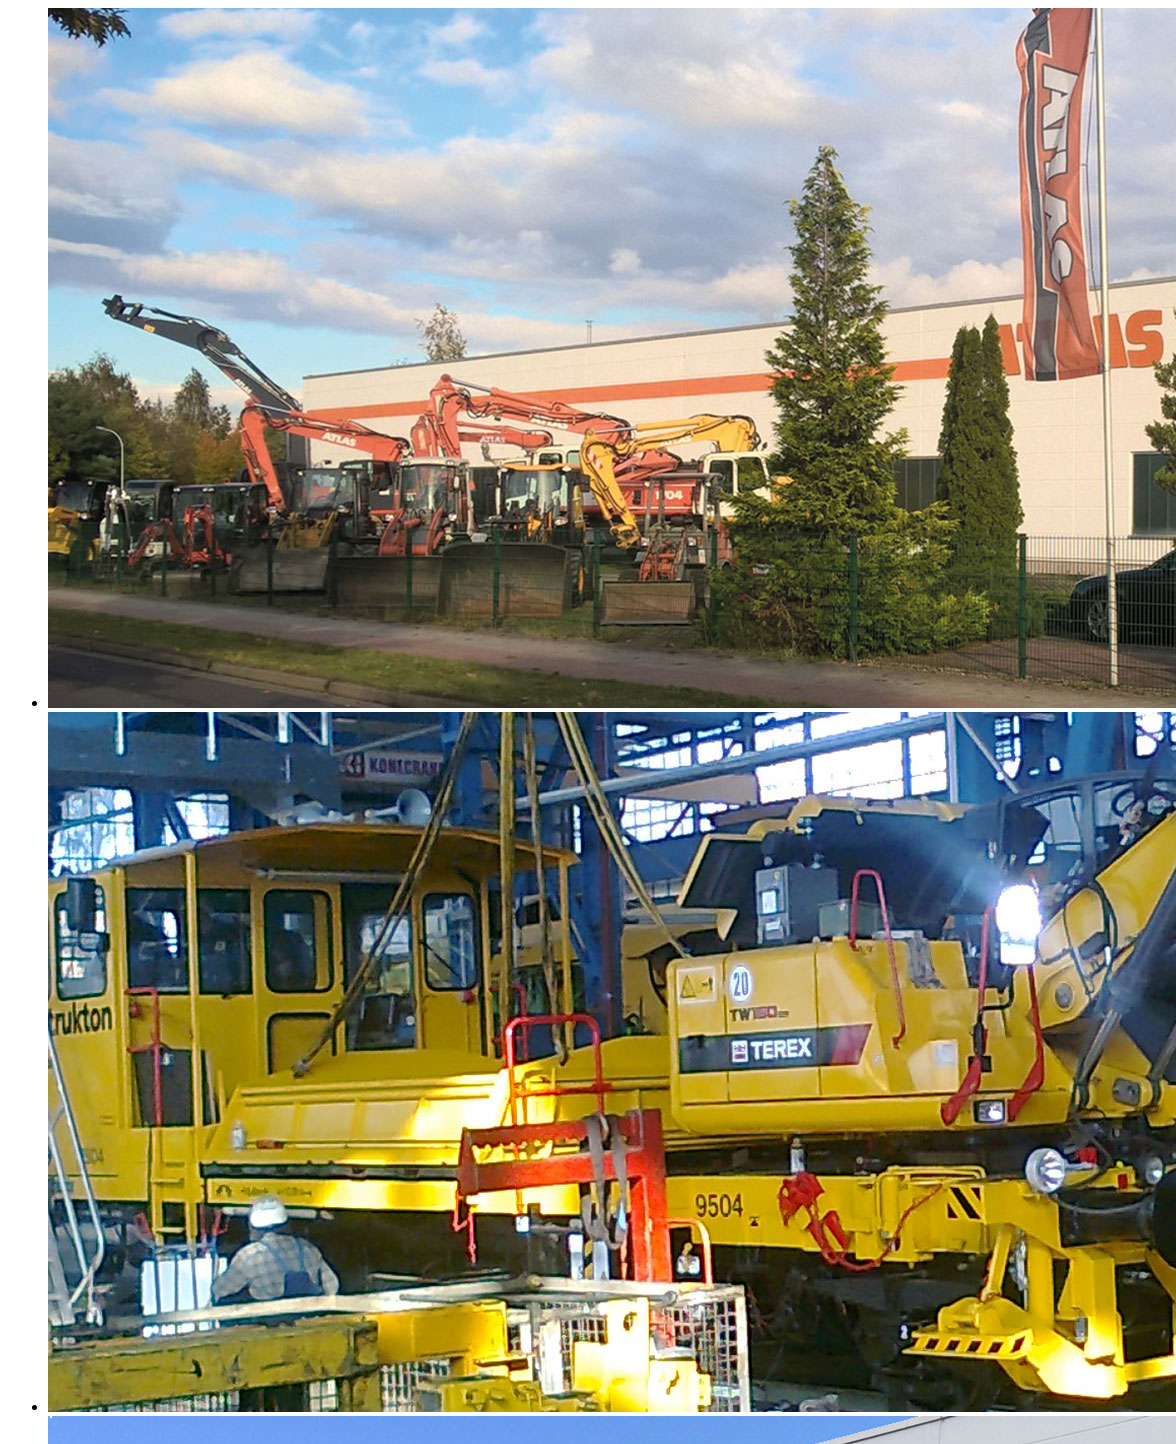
(async () => {
  const canvas = document.querySelector("canvas");
  canvas.width = 1176;
  canvas.height = 1444;
  const ctx = canvas.getContext("2d");
  ctx.miterLimit = 4;
  ctx.fontKerning = "normal";
  async function loadImage(src) {
    const img = new Image();
    img.src = src;
    await img.decode();
    return img;
  }

  ctx.fillStyle = "#ffffff";
  ctx.fillRect(0, 0, 1176, 1444);
  ctx.fillStyle = "#000000";
  ctx.beginPath();
  ctx.arc(34.5, 703.5, 2.5, 0, Math.PI * 2);
  ctx.fill();
  ctx.drawImage(await loadImage("img/1.png"), 48, 8, 1128, 700);
  ctx.beginPath();
  ctx.arc(34.5, 1407.5, 2.5, 0, Math.PI * 2);
  ctx.fill();
  ctx.drawImage(await loadImage("img/2.png"), 48, 712, 1128, 700);
  ctx.drawImage(await loadImage("img/3.png"), 48, 1416, 1128, 28);
})();
